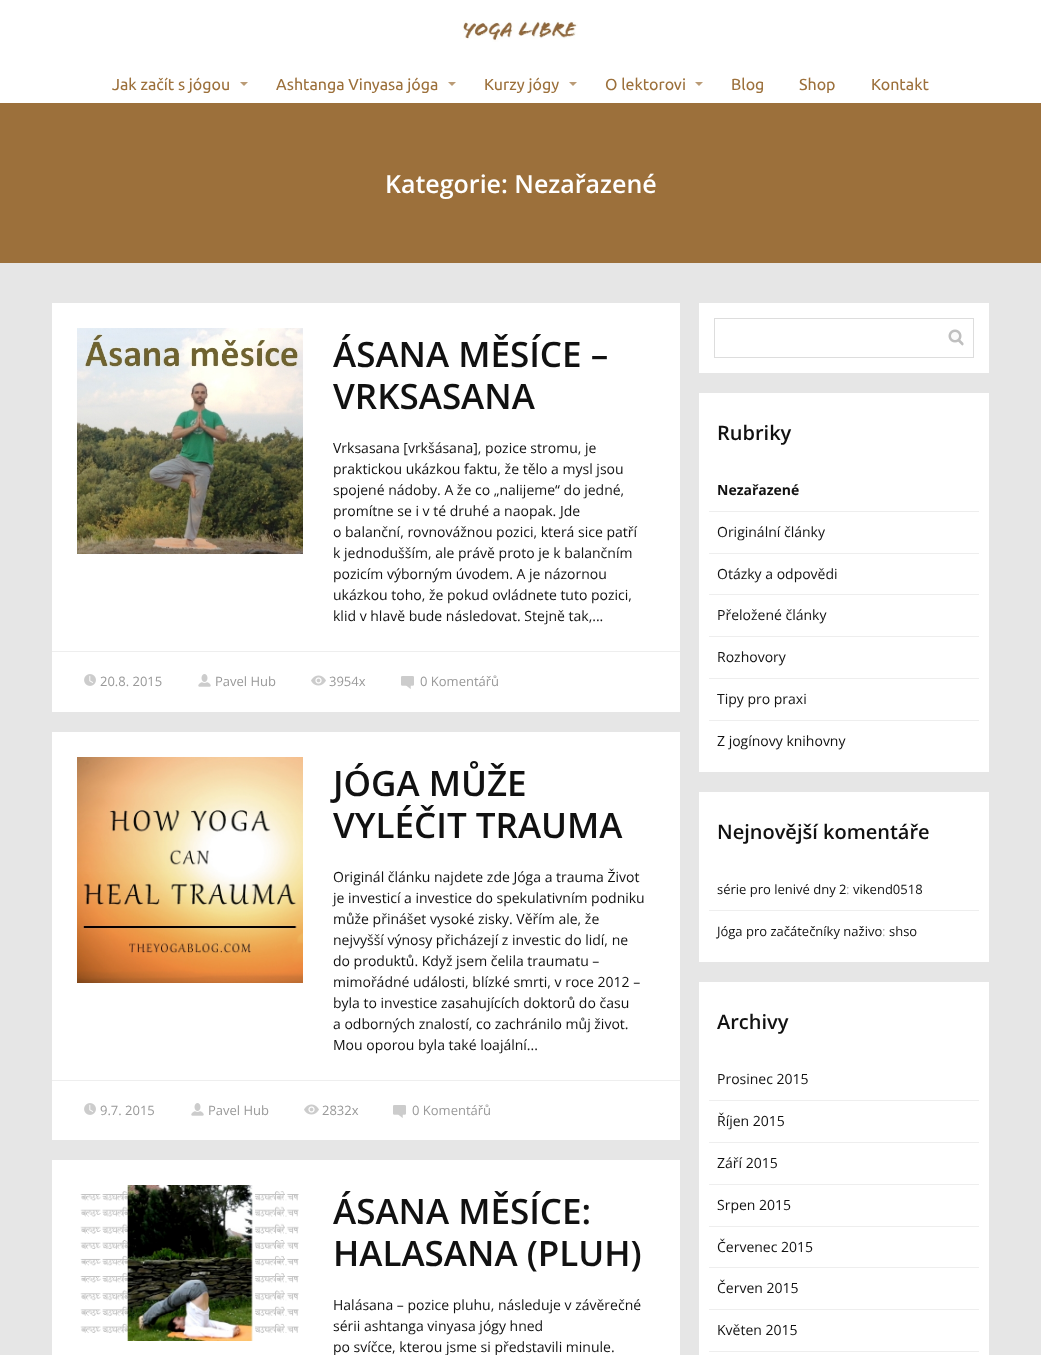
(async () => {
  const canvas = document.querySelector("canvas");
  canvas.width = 1041;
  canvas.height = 1355;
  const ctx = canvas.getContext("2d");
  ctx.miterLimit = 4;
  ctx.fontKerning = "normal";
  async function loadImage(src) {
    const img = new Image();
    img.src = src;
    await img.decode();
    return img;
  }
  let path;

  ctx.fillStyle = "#e6e6e6";
  ctx.fillRect(0, 0, 1041, 1355);
  ctx.fillStyle = "#ffffff";
  ctx.fillRect(0, 0, 1041, 103);
  ctx.drawImage(await loadImage("img/1.png"), 460, 20, 118, 22);
  ctx.fillStyle = "#ba9b76";
  path = new Path2D("M240 82H248L244 86Z");
  ctx.fill(path);
  path = new Path2D("M448 82H456L452 86Z");
  ctx.fill(path);
  path = new Path2D("M569 82H577L573 86Z");
  ctx.fill(path);
  path = new Path2D("M695 82H703L699 86Z");
  ctx.fill(path);
  ctx.fillStyle = "#9c703b";
  ctx.fillRect(0, 103, 1041, 160);
  ctx.fillStyle = "#ffffff";
  ctx.fillRect(52, 303, 628, 409);
  ctx.drawImage(await loadImage("img/2.png"), 77, 328, 226, 226);
  ctx.fillStyle = "#eeeeee";
  ctx.fillRect(52, 651, 628, 1);
  ctx.drawImage(await loadImage("img/3.png"), 84, 674, 12, 12);
  ctx.drawImage(await loadImage("img/4.png"), 198, 674, 13, 13);
  ctx.drawImage(await loadImage("img/5.png"), 311, 675, 15, 11);
  ctx.drawImage(await loadImage("img/6.png"), 401, 676, 13, 13);
  ctx.fillStyle = "#ffffff";
  ctx.fillRect(52, 732, 628, 408);
  ctx.drawImage(await loadImage("img/7.png"), 77, 757, 226, 226);
  ctx.fillStyle = "#eeeeee";
  ctx.fillRect(52, 1080, 628, 1);
  ctx.drawImage(await loadImage("img/3.png"), 84, 1103, 12, 12);
  ctx.drawImage(await loadImage("img/4.png"), 191, 1103, 13, 13);
  ctx.drawImage(await loadImage("img/5.png"), 304, 1104, 15, 11);
  ctx.drawImage(await loadImage("img/6.png"), 393, 1105, 13, 13);
  ctx.fillStyle = "#ffffff";
  ctx.fillRect(52, 1160, 628, 195);
  ctx.drawImage(await loadImage("img/8.png"), 80, 1185, 219, 156);
  ctx.fillRect(699, 303, 290, 70);
  ctx.strokeStyle = "#dddddd";
  ctx.strokeRect(714.5, 318.5, 259, 39);
  ctx.drawImage(await loadImage("img/9.png"), 948, 329, 16, 17);
  for (const [x, y, w, h, color] of [
    [699, 393, 290, 379, "#ffffff"],
    [709, 511, 270, 1, "#eeeeee"],
    [709, 553, 270, 1, "#eeeeee"],
    [709, 594, 270, 1, "#eeeeee"],
    [709, 636, 270, 1, "#eeeeee"],
    [709, 678, 270, 1, "#eeeeee"],
    [709, 720, 270, 1, "#eeeeee"],
    [699, 792, 290, 170, "#ffffff"],
    [709, 910, 270, 1, "#eeeeee"],
    [699, 982, 290, 373, "#ffffff"],
    [709, 1100, 270, 1, "#eeeeee"],
    [709, 1142, 270, 1, "#eeeeee"],
    [709, 1184, 270, 1, "#eeeeee"],
    [709, 1226, 270, 1, "#eeeeee"],
    [709, 1267, 270, 1, "#eeeeee"],
    [709, 1309, 270, 1, "#eeeeee"],
    [709, 1351, 270, 1, "#eeeeee"],
  ]) {
    ctx.fillStyle = color;
    ctx.fillRect(x, y, w, h);
  }
  ctx.font = "16px Ubuntu";
  ctx.fillStyle = "#9c703b";
  for (const [text, x, y] of [
    ["Jak začít s jógou", 112, 90],
    ["Ashtanga Vinyasa jóga", 276, 90],
    ["Kurzy jógy", 484, 90],
    ["O lektorovi", 605, 90],
    ["Blog", 731, 90],
    ["Shop", 799, 90],
    ["Kontakt", 871, 90],
  ]) {
    ctx.fillText(text, x, y);
  }
  ctx.font = "600 25px Open Sans";
  ctx.fillStyle = "#ffffff";
  ctx.fillText("Kategorie: Nezařazené", 385, 193);
  ctx.font = "600 35px Open Sans";
  ctx.fillStyle = "#111111";
  ctx.fillText("ÁSANA MĚSÍCE –", 333, 367);
  ctx.fillText("VRKSASANA", 333, 409);
  ctx.font = "14px Open Sans";
  for (const [text, x, y] of [
    ["Vrksasana [vrkšásana], pozice stromu, je", 333, 453],
    ["praktickou ukázkou faktu, že tělo a mysl jsou", 333, 474],
    ["spojené nádoby. A že co „nalijeme“ do jedné,", 333, 495],
    ["promítne se i v té druhé a naopak. Jde", 333, 516],
    ["o balanční, rovnovážnou pozici, která sice patří", 333, 537],
    ["k jednodušším, ale právě proto je k balančním", 333, 558],
    ["pozicím výborným úvodem. A je názornou", 333, 579],
    ["ukázkou toho, že pokud ovládnete tuto pozici,", 333, 600],
    ["klid v hlavě bude následovat. Stejně tak,...", 333, 621],
  ]) {
    ctx.fillText(text, x, y);
  }
  ctx.font = "13px Open Sans";
  ctx.fillStyle = "#999999";
  for (const [text, x, y] of [
    ["20.8. 2015", 100, 686],
    ["Pavel Hub", 215, 686],
    ["3954x", 329, 686],
    ["0 Komentářů", 420, 686],
  ]) {
    ctx.fillText(text, x, y);
  }
  ctx.font = "600 35px Open Sans";
  ctx.fillStyle = "#111111";
  ctx.fillText("JÓGA MŮŽE", 333, 796);
  ctx.fillText("VYLÉČIT TRAUMA", 333, 838);
  ctx.font = "14px Open Sans";
  for (const [text, x, y] of [
    ["Originál článku najdete zde Jóga a trauma Život", 333, 882],
    ["je investicí a investice do spekulativním podniku", 333, 903],
    ["může přinášet vysoké zisky. Věřím ale, že", 333, 924],
    ["nejvyšší výnosy přicházejí z investic do lidí, ne", 333, 945],
    ["do produktů. Když jsem čelila traumatu –", 333, 966],
    ["mimořádné události, blízké smrti, v roce 2012 –", 333, 987],
    ["byla to investice zasahujících doktorů do času", 333, 1008],
    ["a odborných znalostí, co zachránilo můj život.", 333, 1029],
    ["Mou oporou byla také loajální...", 333, 1050],
  ]) {
    ctx.fillText(text, x, y);
  }
  ctx.font = "13px Open Sans";
  ctx.fillStyle = "#999999";
  for (const [text, x, y] of [
    ["9.7. 2015", 100, 1115],
    ["Pavel Hub", 208, 1115],
    ["2832x", 322, 1115],
    ["0 Komentářů", 412, 1115],
  ]) {
    ctx.fillText(text, x, y);
  }
  ctx.font = "600 35px Open Sans";
  ctx.fillStyle = "#111111";
  ctx.fillText("ÁSANA MĚSÍCE:", 333, 1224);
  ctx.fillText("HALASANA (PLUH)", 333, 1266);
  ctx.font = "14px Open Sans";
  for (const [text, x, y] of [
    ["Halásana – pozice pluhu, následuje v závěrečné", 333, 1310],
    ["sérii ashtanga vinyasa jógy hned", 333, 1331],
    ["po svíčce, kterou jsme si představili minule.", 333, 1352],
  ]) {
    ctx.fillText(text, x, y);
  }
  ctx.font = "600 20px Open Sans";
  ctx.fillText("Rubriky", 717, 440);
  ctx.font = "bold 14px Open Sans";
  ctx.fillText("Nezařazené", 717, 495);
  ctx.font = "14px Open Sans";
  for (const [text, x, y] of [
    ["Originální články", 717, 537],
    ["Otázky a odpovědi", 717, 579],
    ["Přeložené články", 717, 620],
    ["Rozhovory", 717, 662],
    ["Tipy pro praxi", 717, 704],
    ["Z jogínovy knihovny", 717, 746],
  ]) {
    ctx.fillText(text, x, y);
  }
  ctx.font = "600 20px Open Sans";
  ctx.fillText("Nejnovější komentáře", 717, 839);
  ctx.font = "13px Open Sans";
  ctx.fillText("série pro lenivé dny 2", 717, 894);
  ctx.fillStyle = "#aaaaaa";
  ctx.fillText(":", 846, 894);
  ctx.fillStyle = "#111111";
  ctx.fillText("vikend0518", 853, 894);
  ctx.fillText("Jóga pro začátečníky naživo", 717, 936);
  ctx.fillStyle = "#aaaaaa";
  ctx.fillText(":", 882, 936);
  ctx.fillStyle = "#111111";
  ctx.fillText("shso", 889, 936);
  ctx.font = "600 20px Open Sans";
  ctx.fillText("Archivy", 717, 1029);
  ctx.font = "14px Open Sans";
  for (const [text, x, y] of [
    ["Prosinec 2015", 717, 1084],
    ["Říjen 2015", 717, 1126],
    ["Září 2015", 717, 1168],
    ["Srpen 2015", 717, 1210],
    ["Červenec 2015", 717, 1252],
    ["Červen 2015", 717, 1293],
    ["Květen 2015", 717, 1335],
  ]) {
    ctx.fillText(text, x, y);
  }
})();
